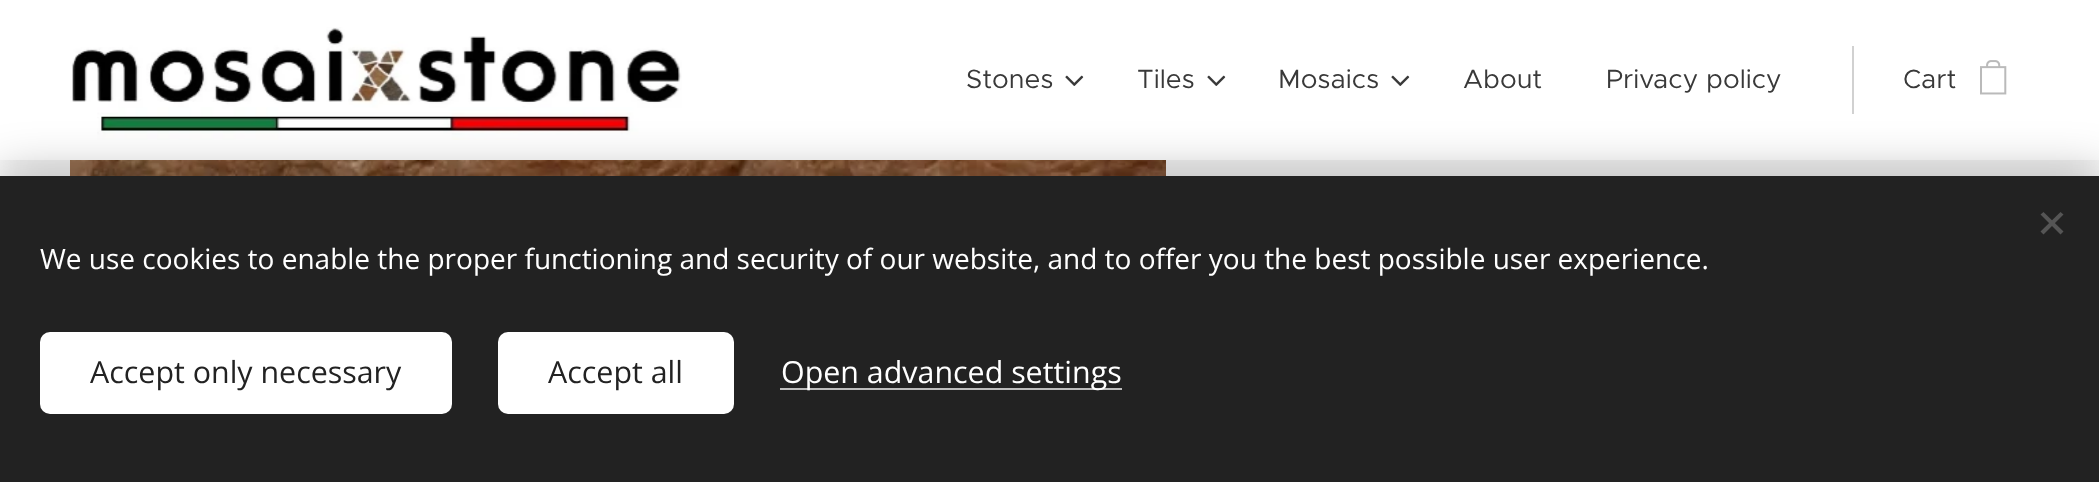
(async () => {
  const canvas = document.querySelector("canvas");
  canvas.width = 2099;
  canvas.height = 482;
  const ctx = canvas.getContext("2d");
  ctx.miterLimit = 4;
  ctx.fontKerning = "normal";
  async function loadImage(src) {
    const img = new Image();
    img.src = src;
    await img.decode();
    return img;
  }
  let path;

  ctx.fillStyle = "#ffffff";
  ctx.fillRect(0, 0, 2099, 482);
  ctx.drawImage(await loadImage("img/4.png"), 70, 160, 1096, 16);
  ctx.fillStyle = "rgba(0, 0, 0, 0.07)";
  ctx.filter = "blur(15px)";
  ctx.beginPath();
  ctx.rect(0, 10, 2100, 160);
  ctx.fill();
  ctx.filter = "none";
  ctx.fillStyle = "#ffffff";
  ctx.fillRect(0, 0, 2099, 160);
  ctx.drawImage(await loadImage("img/1.png"), 70, 27, 612, 113);
  ctx.drawImage(await loadImage("img/2.png"), 1065, 75, 19, 11);
  ctx.drawImage(await loadImage("img/2.png"), 1207, 75, 19, 11);
  ctx.drawImage(await loadImage("img/2.png"), 1391, 75, 19, 11);
  ctx.fillStyle = "#d1d1d1";
  ctx.fillRect(1852, 46, 2, 68);
  ctx.drawImage(await loadImage("img/3.png"), 1980, 60, 27, 35);
  ctx.fillStyle = "rgba(0, 0, 0, 0.33)";
  ctx.filter = "blur(25px)";
  ctx.beginPath();
  ctx.rect(0, 176, 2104, 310);
  ctx.fill();
  ctx.filter = "none";
  ctx.fillStyle = "#222222";
  ctx.fillRect(0, 176, 2099, 306);
  ctx.fillStyle = "#555555";
  path = new Path2D("M2040.5 231.5L2060.5 212L2063.5 214.5L2043.5 234.5Z");
  ctx.fill(path);
  path = new Path2D("M2043.5 212L2063.5 231.5L2060.5 234.5L2040.5 214.5Z");
  ctx.fill(path);
  ctx.fillStyle = "#ffffff";
  ctx.beginPath();
  ctx.roundRect(40, 332, 412, 82, 10);
  ctx.fill();
  ctx.beginPath();
  ctx.roundRect(498, 332, 236, 82, 10);
  ctx.fill();
  ctx.fillStyle = "#bdbdbd";
  ctx.fillRect(780, 388, 342, 2);
  ctx.font = "26.5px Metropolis";
  ctx.fillStyle = "#393939";
  for (const [text, x, y] of [
    ["Stones", 966, 88],
    ["Tiles", 1137, 88],
    ["Mosaics", 1278, 88],
    ["About", 1463, 88],
    ["Privacy policy", 1606, 88],
    ["Cart", 1903, 88],
  ]) {
    ctx.fillText(text, x, y);
  }
  ctx.font = "28px Open Sans";
  ctx.fillStyle = "#ffffff";
  ctx.fillText("We use cookies to enable the proper functioning and security of our website, and to offer you the best possible user experience.", 40, 269);
  ctx.font = "30.4px Open Sans";
  ctx.fillStyle = "#222222";
  ctx.fillText("Accept only necessary", 90, 383);
  ctx.fillText("Accept all", 548, 383);
  ctx.fillStyle = "#ffffff";
  ctx.fillText("Open advanced settings", 781, 383);
})();
